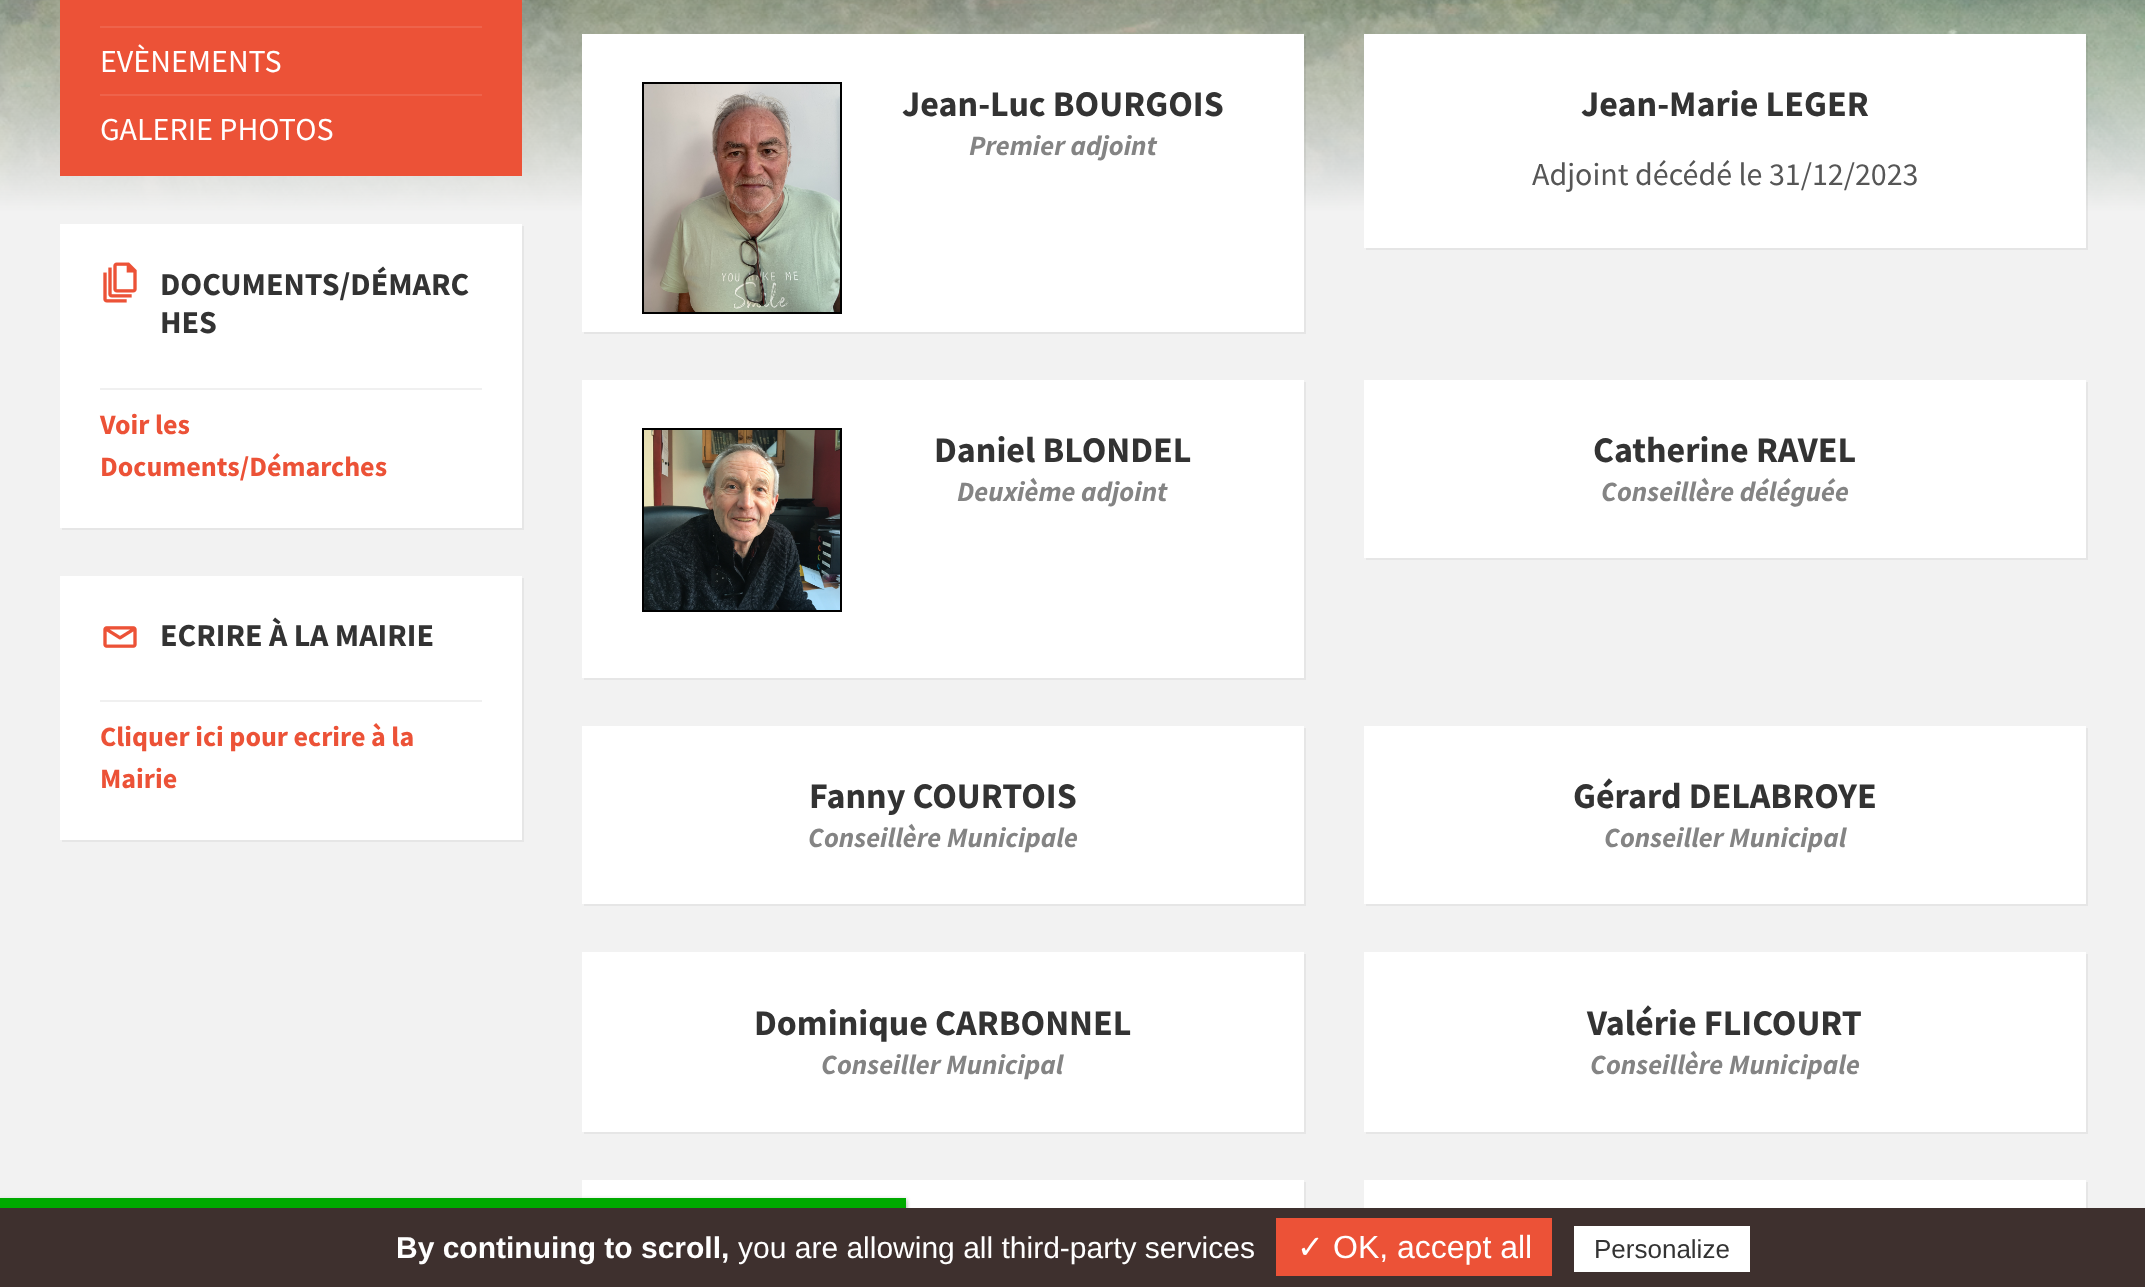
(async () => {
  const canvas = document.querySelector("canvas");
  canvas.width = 2145;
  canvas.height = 1287;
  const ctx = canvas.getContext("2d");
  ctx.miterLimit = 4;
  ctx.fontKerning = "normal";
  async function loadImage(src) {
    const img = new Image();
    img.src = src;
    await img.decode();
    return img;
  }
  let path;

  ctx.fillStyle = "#f2f2f2";
  ctx.fillRect(0, 0, 2145, 1287);
  ctx.drawImage(await loadImage("img/1.png"), 0, 0, 2145, 212);
  for (const [x, y, w, h, color] of [
    [60, 0, 462, 176, "#ec5237"],
    [100, 26, 382, 2, "#ee634b"],
    [100, 94, 382, 2, "#ee634b"],
  ]) {
    ctx.fillStyle = color;
    ctx.fillRect(x, y, w, h);
  }
  ctx.fillStyle = "#e6e6e6";
  path = new Path2D("M62 528V530H524V226H522V528Z");
  ctx.fill(path);
  ctx.fillStyle = "#ffffff";
  ctx.fillRect(60, 224, 462, 304);
  ctx.drawImage(await loadImage("img/2.png"), 103, 262, 34, 41);
  ctx.fillStyle = "#f0f0f0";
  ctx.fillRect(100, 388, 382, 2);
  ctx.fillStyle = "#e6e6e6";
  path = new Path2D("M62 840V842H524V578H522V840Z");
  ctx.fill(path);
  ctx.fillStyle = "#ffffff";
  ctx.fillRect(60, 576, 462, 264);
  ctx.drawImage(await loadImage("img/3.png"), 103, 626, 34, 22);
  ctx.fillStyle = "#f0f0f0";
  ctx.fillRect(100, 700, 382, 2);
  ctx.fillStyle = "rgba(0, 0, 0, 0.05)";
  path = new Path2D("M584 332V334H1306V36H1304V332Z");
  ctx.fill(path);
  ctx.fillStyle = "#ffffff";
  ctx.fillRect(582, 34, 722, 298);
  ctx.strokeStyle = "#000000";
  ctx.lineWidth = 2;
  ctx.strokeRect(643, 83, 198, 230);
  ctx.drawImage(await loadImage("img/4.png"), 644, 84, 196, 228);
  ctx.fillStyle = "rgba(0, 0, 0, 0.05)";
  path = new Path2D("M1366 248V250H2088V36H2086V248Z");
  ctx.fill(path);
  ctx.fillStyle = "#ffffff";
  ctx.fillRect(1364, 34, 722, 214);
  ctx.fillStyle = "#e6e6e6";
  path = new Path2D("M584 678V680H1306V382H1304V678Z");
  ctx.fill(path);
  ctx.fillStyle = "#ffffff";
  ctx.fillRect(582, 380, 722, 298);
  ctx.strokeRect(643, 429, 198, 182);
  ctx.drawImage(await loadImage("img/5.png"), 644, 430, 196, 180);
  ctx.fillStyle = "#e6e6e6";
  path = new Path2D("M1366 558V560H2088V382H2086V558Z");
  ctx.fill(path);
  ctx.fillStyle = "#ffffff";
  ctx.fillRect(1364, 380, 722, 178);
  ctx.fillStyle = "#e6e6e6";
  path = new Path2D("M584 904V906H1306V728H1304V904Z");
  ctx.fill(path);
  ctx.fillStyle = "#ffffff";
  ctx.fillRect(582, 726, 722, 178);
  ctx.fillStyle = "#e6e6e6";
  path = new Path2D("M1366 904V906H2088V728H2086V904Z");
  ctx.fill(path);
  ctx.fillStyle = "#ffffff";
  ctx.fillRect(1364, 726, 722, 178);
  ctx.fillStyle = "#e6e6e6";
  path = new Path2D("M584 1132V1134H1306V954H1304V1132Z");
  ctx.fill(path);
  ctx.fillStyle = "#ffffff";
  ctx.fillRect(582, 952, 722, 180);
  ctx.fillStyle = "#e6e6e6";
  path = new Path2D("M1366 1132V1134H2088V954H2086V1132Z");
  ctx.fill(path);
  ctx.fillStyle = "#ffffff";
  ctx.fillRect(1364, 952, 722, 180);
  ctx.fillStyle = "#e6e6e6";
  path = new Path2D("M584 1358V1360H1306V1182H1304V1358Z");
  ctx.fill(path);
  ctx.fillStyle = "#ffffff";
  ctx.fillRect(582, 1180, 722, 28);
  ctx.fillStyle = "#e6e6e6";
  path = new Path2D("M1366 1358V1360H2088V1182H2086V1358Z");
  ctx.fill(path);
  ctx.fillStyle = "#ffffff";
  ctx.fillRect(1364, 1180, 722, 28);
  ctx.fillStyle = "#555555";
  ctx.filter = "blur(2px)";
  ctx.beginPath();
  ctx.rect(0, 1200, 906, 10);
  ctx.fill();
  ctx.filter = "none";
  ctx.fillStyle = "#ffffff";
  ctx.filter = "blur(2px)";
  ctx.beginPath();
  ctx.rect(0, 1198, 906, 10);
  ctx.fill();
  ctx.filter = "none";
  for (const [x, y, w, h, color] of [
    [0, 1198, 906, 10, "#00aa00"],
    [0, 1208, 2145, 79, "#3e302e"],
    [1276, 1218, 276, 58, "#ec5237"],
    [1574, 1226, 176, 46, "#ffffff"],
  ]) {
    ctx.fillStyle = color;
    ctx.fillRect(x, y, w, h);
  }
  ctx.font = "32px Source Sans Pro";
  ctx.fillText("EVÈNEMENTS", 100, 72);
  ctx.fillText("GALERIE PHOTOS", 100, 140);
  ctx.font = "bold 32px Source Sans Pro";
  ctx.fillStyle = "#333333";
  ctx.fillText("DOCUMENTS/DÉMARC", 160, 295);
  ctx.fillText("HES", 160, 333);
  ctx.font = "bold 28px Source Sans Pro";
  ctx.fillStyle = "#ec5237";
  ctx.fillText("Voir les", 100, 434);
  ctx.fillText("Documents/Démarches", 100, 476);
  ctx.font = "bold 32px Source Sans Pro";
  ctx.fillStyle = "#333333";
  ctx.fillText("ECRIRE À LA MAIRIE", 160, 646);
  ctx.font = "bold 28px Source Sans Pro";
  ctx.fillStyle = "#ec5237";
  ctx.fillText("Cliquer ici pour ecrire à la", 100, 746);
  ctx.fillText("Mairie", 100, 788);
  ctx.font = "bold 36px Source Sans Pro";
  ctx.fillStyle = "#333333";
  ctx.fillText("Jean-Luc BOURGOIS", 902, 116);
  ctx.font = "italic bold 28px Source Sans Pro";
  ctx.fillStyle = "#848484";
  ctx.fillText("Premier adjoint", 969, 155);
  ctx.font = "bold 36px Source Sans Pro";
  ctx.fillStyle = "#333333";
  ctx.fillText("Jean-Marie LEGER", 1581, 116);
  ctx.font = "32px Source Sans Pro";
  ctx.fillStyle = "#565656";
  ctx.fillText("Adjoint décédé le 31/12/2023", 1532, 185);
  ctx.font = "bold 36px Source Sans Pro";
  ctx.fillStyle = "#333333";
  ctx.fillText("Daniel BLONDEL", 934, 462);
  ctx.font = "italic bold 28px Source Sans Pro";
  ctx.fillStyle = "#848484";
  ctx.fillText("Deuxième adjoint", 957, 501);
  ctx.font = "bold 36px Source Sans Pro";
  ctx.fillStyle = "#333333";
  ctx.fillText("Catherine RAVEL", 1593, 462);
  ctx.font = "italic bold 28px Source Sans Pro";
  ctx.fillStyle = "#848484";
  ctx.fillText("Conseillère déléguée", 1601, 501);
  ctx.font = "bold 36px Source Sans Pro";
  ctx.fillStyle = "#333333";
  ctx.fillText("Fanny COURTOIS", 809, 808);
  ctx.font = "italic bold 28px Source Sans Pro";
  ctx.fillStyle = "#848484";
  ctx.fillText("Conseillère Municipale", 808, 847);
  ctx.font = "bold 36px Source Sans Pro";
  ctx.fillStyle = "#333333";
  ctx.fillText("Gérard DELABROYE", 1573, 808);
  ctx.font = "italic bold 28px Source Sans Pro";
  ctx.fillStyle = "#848484";
  ctx.fillText("Conseiller Municipal", 1604, 847);
  ctx.font = "bold 36px Source Sans Pro";
  ctx.fillStyle = "#333333";
  ctx.fillText("Dominique CARBONNEL", 754, 1035);
  ctx.font = "italic bold 28px Source Sans Pro";
  ctx.fillStyle = "#848484";
  ctx.fillText("Conseiller Municipal", 821, 1074);
  ctx.font = "bold 36px Source Sans Pro";
  ctx.fillStyle = "#333333";
  ctx.fillText("Valérie FLICOURT", 1587, 1035);
  ctx.font = "italic bold 28px Source Sans Pro";
  ctx.fillStyle = "#848484";
  ctx.fillText("Conseillère Municipale", 1590, 1074);
  ctx.font = "bold 30px Liberation Sans";
  ctx.fillStyle = "#ffffff";
  ctx.fillText("By continuing to scroll,", 396, 1258);
  ctx.font = "30px Liberation Sans";
  ctx.fillText("you are allowing all third-party services", 738, 1258);
  ctx.font = "32px DejaVu Sans";
  ctx.fillText("✓", 1297, 1258);
  ctx.font = "32px Liberation Sans";
  ctx.fillText("OK, accept all", 1333, 1258);
  ctx.font = "26px Liberation Sans";
  ctx.fillStyle = "#333333";
  ctx.fillText("Personalize", 1594, 1258);
})();
